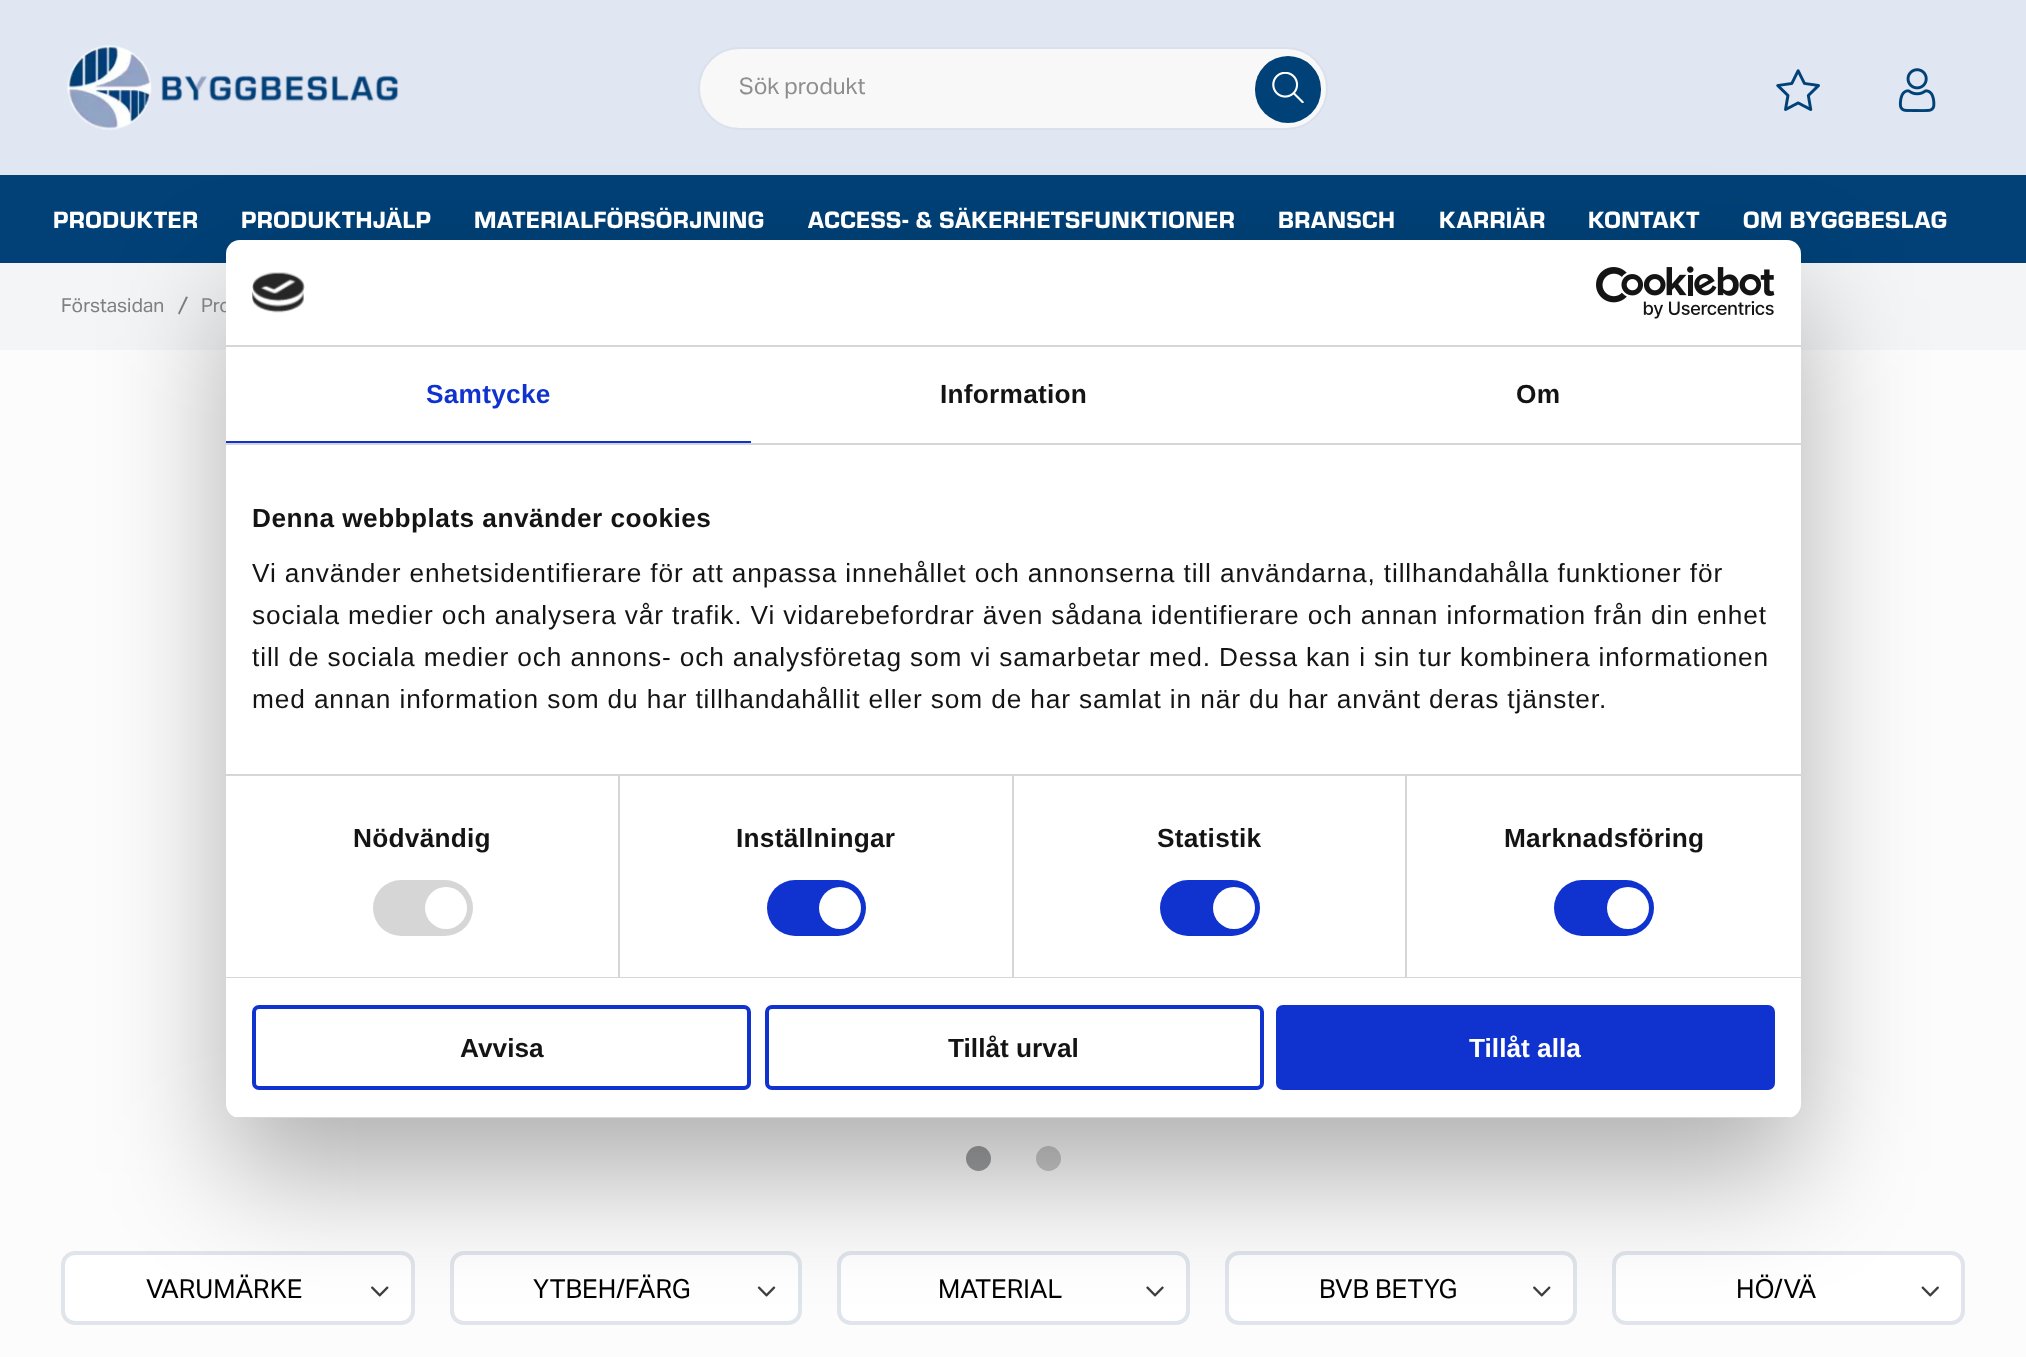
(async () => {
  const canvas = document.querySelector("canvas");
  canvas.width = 2026;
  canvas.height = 1357;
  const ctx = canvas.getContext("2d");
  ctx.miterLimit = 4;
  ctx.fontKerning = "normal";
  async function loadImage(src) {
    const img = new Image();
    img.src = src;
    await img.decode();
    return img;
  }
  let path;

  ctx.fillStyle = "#fcfcfc";
  ctx.fillRect(0, 0, 2026, 1357);
  ctx.fillStyle = "#e0e6f2";
  ctx.fillRect(0, 0, 2026, 175);
  ctx.drawImage(await loadImage("img/1.png"), 67, 45, 332, 85);
  ctx.fillStyle = "#f8f8f8";
  ctx.beginPath();
  ctx.roundRect(699, 48, 628, 81, 40.5);
  ctx.fill();
  ctx.strokeStyle = "#dae0ec";
  ctx.lineWidth = 2;
  ctx.stroke();
  ctx.fillStyle = "#004178";
  ctx.beginPath();
  ctx.roundRect(1255, 56, 66, 67, 33);
  ctx.fill();
  ctx.drawImage(await loadImage("img/2.png"), 1272, 72, 32, 31);
  ctx.drawImage(await loadImage("img/3.png"), 1776, 69, 44, 42);
  ctx.drawImage(await loadImage("img/4.png"), 1898, 68, 38, 44);
  ctx.fillStyle = "#014177";
  ctx.fillRect(0, 175, 2026, 88);
  ctx.fillStyle = "#f4f5f7";
  ctx.fillRect(0, 263, 2026, 87);
  ctx.fillStyle = "#7e8084";
  path = new Path2D("M186 296.5L188 297L179.5 314.5L178 313.5Z");
  ctx.fill(path);
  ctx.fillStyle = "#9e9fa1";
  ctx.beginPath();
  ctx.arc(978.5, 1158.5, 12.5, 0, Math.PI * 2);
  ctx.fill();
  ctx.fillStyle = "#cacaca";
  ctx.beginPath();
  ctx.arc(1048.5, 1158.5, 12.5, 0, Math.PI * 2);
  ctx.fill();
  ctx.fillStyle = "#ffffff";
  ctx.beginPath();
  ctx.roundRect(63, 1253, 350, 70, 12);
  ctx.fill();
  ctx.strokeStyle = "#e0e5eb";
  ctx.lineWidth = 4;
  ctx.stroke();
  ctx.drawImage(await loadImage("img/5.png"), 371, 1286, 18, 11);
  ctx.beginPath();
  ctx.roundRect(452, 1253, 348, 70, 12);
  ctx.fill();
  ctx.stroke();
  ctx.drawImage(await loadImage("img/6.png"), 757, 1286, 19, 11);
  ctx.beginPath();
  ctx.roundRect(839, 1253, 349, 70, 12);
  ctx.fill();
  ctx.stroke();
  ctx.drawImage(await loadImage("img/7.png"), 1146, 1286, 18, 11);
  ctx.beginPath();
  ctx.roundRect(1227, 1253, 348, 70, 12);
  ctx.fill();
  ctx.stroke();
  ctx.drawImage(await loadImage("img/5.png"), 1533, 1286, 18, 11);
  ctx.beginPath();
  ctx.roundRect(1614, 1253, 349, 70, 12);
  ctx.fill();
  ctx.stroke();
  ctx.drawImage(await loadImage("img/8.png"), 1921, 1286, 18, 11);
  ctx.fillStyle = "rgba(0, 0, 0, 0.3)";
  ctx.filter = "blur(59.5px)";
  ctx.beginPath();
  ctx.roundRect(226, 296, 1575, 878, 14);
  ctx.fill();
  ctx.filter = "none";
  ctx.font = "22.75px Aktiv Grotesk";
  ctx.fillStyle = "#8e8e8e";
  ctx.fillText("Sök produkt", 739, 94);
  ctx.letterSpacing = "0.5px";
  ctx.font = "900 24.5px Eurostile";
  ctx.fillStyle = "#ffffff";
  for (const [text, x, y] of [
    ["PRODUKTER", 53, 228],
    ["PRODUKTHJÄLP", 241, 228],
    ["MATERIALFÖRSÖRJNING", 474, 228],
    ["ACCESS- & SÄKERHETSFUNKTIONER", 808, 228],
    ["BRANSCH", 1278, 228],
    ["KARRIÄR", 1439, 228],
    ["KONTAKT", 1588, 228],
    ["OM BYGGBESLAG", 1743, 228],
  ]) {
    ctx.fillText(text, x, y);
  }
  ctx.letterSpacing = "0px";
  ctx.font = "19.25px Aktiv Grotesk";
  ctx.fillStyle = "#7e8084";
  ctx.fillText("Förstasidan", 61, 312);
  ctx.fillText("Pro", 201, 312);
  ctx.font = "26.25px Aktiv Grotesk";
  ctx.fillStyle = "#000000";
  for (const [text, x, y] of [
    ["VARUMÄRKE", 146, 1298],
    ["YTBEH/FÄRG", 533, 1298],
    ["MATERIAL", 938, 1298],
    ["BVB BETYG", 1319, 1298],
    ["HÖ/VÄ", 1736, 1298],
  ]) {
    ctx.fillText(text, x, y);
  }
  ctx.fillStyle = "#ffffff";
  ctx.beginPath();
  ctx.roundRect(226, 240, 1575, 878, 14);
  ctx.fill();
  ctx.fillStyle = "#d6d6d6";
  ctx.fillRect(226, 345, 1575, 2);
  ctx.drawImage(await loadImage("img/9.png"), 252, 272, 53, 41);
  ctx.drawImage(await loadImage("img/10.png"), 1596, 266, 179, 53);
  ctx.fillRect(226, 443, 1575, 2);
  ctx.fillStyle = "#1032cf";
  ctx.fillRect(226, 441, 525, 2);
  ctx.letterSpacing = "0.25px";
  ctx.font = "bold 26.25px Liberation Sans";
  ctx.fillText("Samtycke", 426, 403);
  ctx.fillStyle = "#141414";
  ctx.fillText("Information", 940, 403);
  ctx.fillText("Om", 1516, 403);
  ctx.letterSpacing = "0.45px";
  ctx.fillText("Denna webbplats använder cookies", 252, 527);
  ctx.letterSpacing = "0.88px";
  ctx.font = "26.25px Liberation Sans";
  for (const [text, x, y] of [
    ["Vi använder enhetsidentifierare för att anpassa innehållet och annonserna till användarna, tillhandahålla funktioner för", 252, 582],
    ["sociala medier och analysera vår trafik. Vi vidarebefordrar även sådana identifierare och annan information från din enhet", 252, 624],
    ["till de sociala medier och annons- och analysföretag som vi samarbetar med. Dessa kan i sin tur kombinera informationen", 252, 666],
    ["med annan information som du har tillhandahållit eller som de har samlat in när du har använt deras tjänster.", 252, 708],
  ]) {
    ctx.fillText(text, x, y);
  }
  ctx.fillStyle = "#d6d6d6";
  ctx.fillRect(226, 977, 1575, 1);
  ctx.fillRect(618, 775, 2, 202);
  ctx.letterSpacing = "0.25px";
  ctx.font = "bold 26.25px Liberation Sans";
  ctx.fillStyle = "#141414";
  ctx.fillText("Nödvändig", 353, 847);
  ctx.fillStyle = "#d6d6d6";
  ctx.beginPath();
  ctx.roundRect(373, 880, 100, 56, 28);
  ctx.fill();
  ctx.fillStyle = "#ffffff";
  ctx.beginPath();
  ctx.arc(446, 908, 21, 0, Math.PI * 2);
  ctx.fill();
  ctx.fillStyle = "#d6d6d6";
  ctx.fillRect(1012, 775, 2, 202);
  ctx.fillStyle = "#141414";
  ctx.fillText("Inställningar", 736, 847);
  ctx.fillStyle = "#1032cf";
  ctx.beginPath();
  ctx.roundRect(767, 880, 99, 56, 28);
  ctx.fill();
  ctx.fillStyle = "#ffffff";
  ctx.beginPath();
  ctx.arc(840, 908, 21, 0, Math.PI * 2);
  ctx.fill();
  ctx.fillStyle = "#d6d6d6";
  ctx.fillRect(1405, 775, 2, 202);
  ctx.fillRect(226, 774, 1575, 2);
  ctx.fillStyle = "#141414";
  ctx.fillText("Statistik", 1157, 847);
  ctx.fillStyle = "#1032cf";
  ctx.beginPath();
  ctx.roundRect(1160, 880, 100, 56, 28);
  ctx.fill();
  ctx.fillStyle = "#ffffff";
  ctx.beginPath();
  ctx.arc(1234, 908, 21, 0, Math.PI * 2);
  ctx.fill();
  ctx.fillStyle = "#141414";
  ctx.fillText("Marknadsföring", 1504, 847);
  ctx.fillStyle = "#1032cf";
  ctx.beginPath();
  ctx.roundRect(1554, 880, 100, 56, 28);
  ctx.fill();
  ctx.fillStyle = "#ffffff";
  ctx.beginPath();
  ctx.arc(1628, 908, 21, 0, Math.PI * 2);
  ctx.fill();
  ctx.save();
  ctx.beginPath();
  ctx.roundRect(226, 240, 1575, 878, 14);
  ctx.clip();
  ctx.fillStyle = "#d6d6d6";
  ctx.fillRect(235, 1117, 1557, 1);
  ctx.restore();
  ctx.beginPath();
  ctx.roundRect(254, 1007, 495, 81, 5);
  ctx.strokeStyle = "#1032cf";
  ctx.stroke();
  ctx.letterSpacing = "0px";
  ctx.fillStyle = "#141414";
  ctx.fillText("Avvisa", 460, 1057);
  ctx.beginPath();
  ctx.roundRect(767, 1007, 495, 81, 5);
  ctx.stroke();
  ctx.fillText("Tillåt urval", 948, 1057);
  ctx.fillStyle = "#1032cf";
  ctx.beginPath();
  ctx.roundRect(1278, 1007, 495, 81, 5);
  ctx.fill();
  ctx.stroke();
  ctx.fillStyle = "#ffffff";
  ctx.fillText("Tillåt alla", 1469, 1057);
})();
